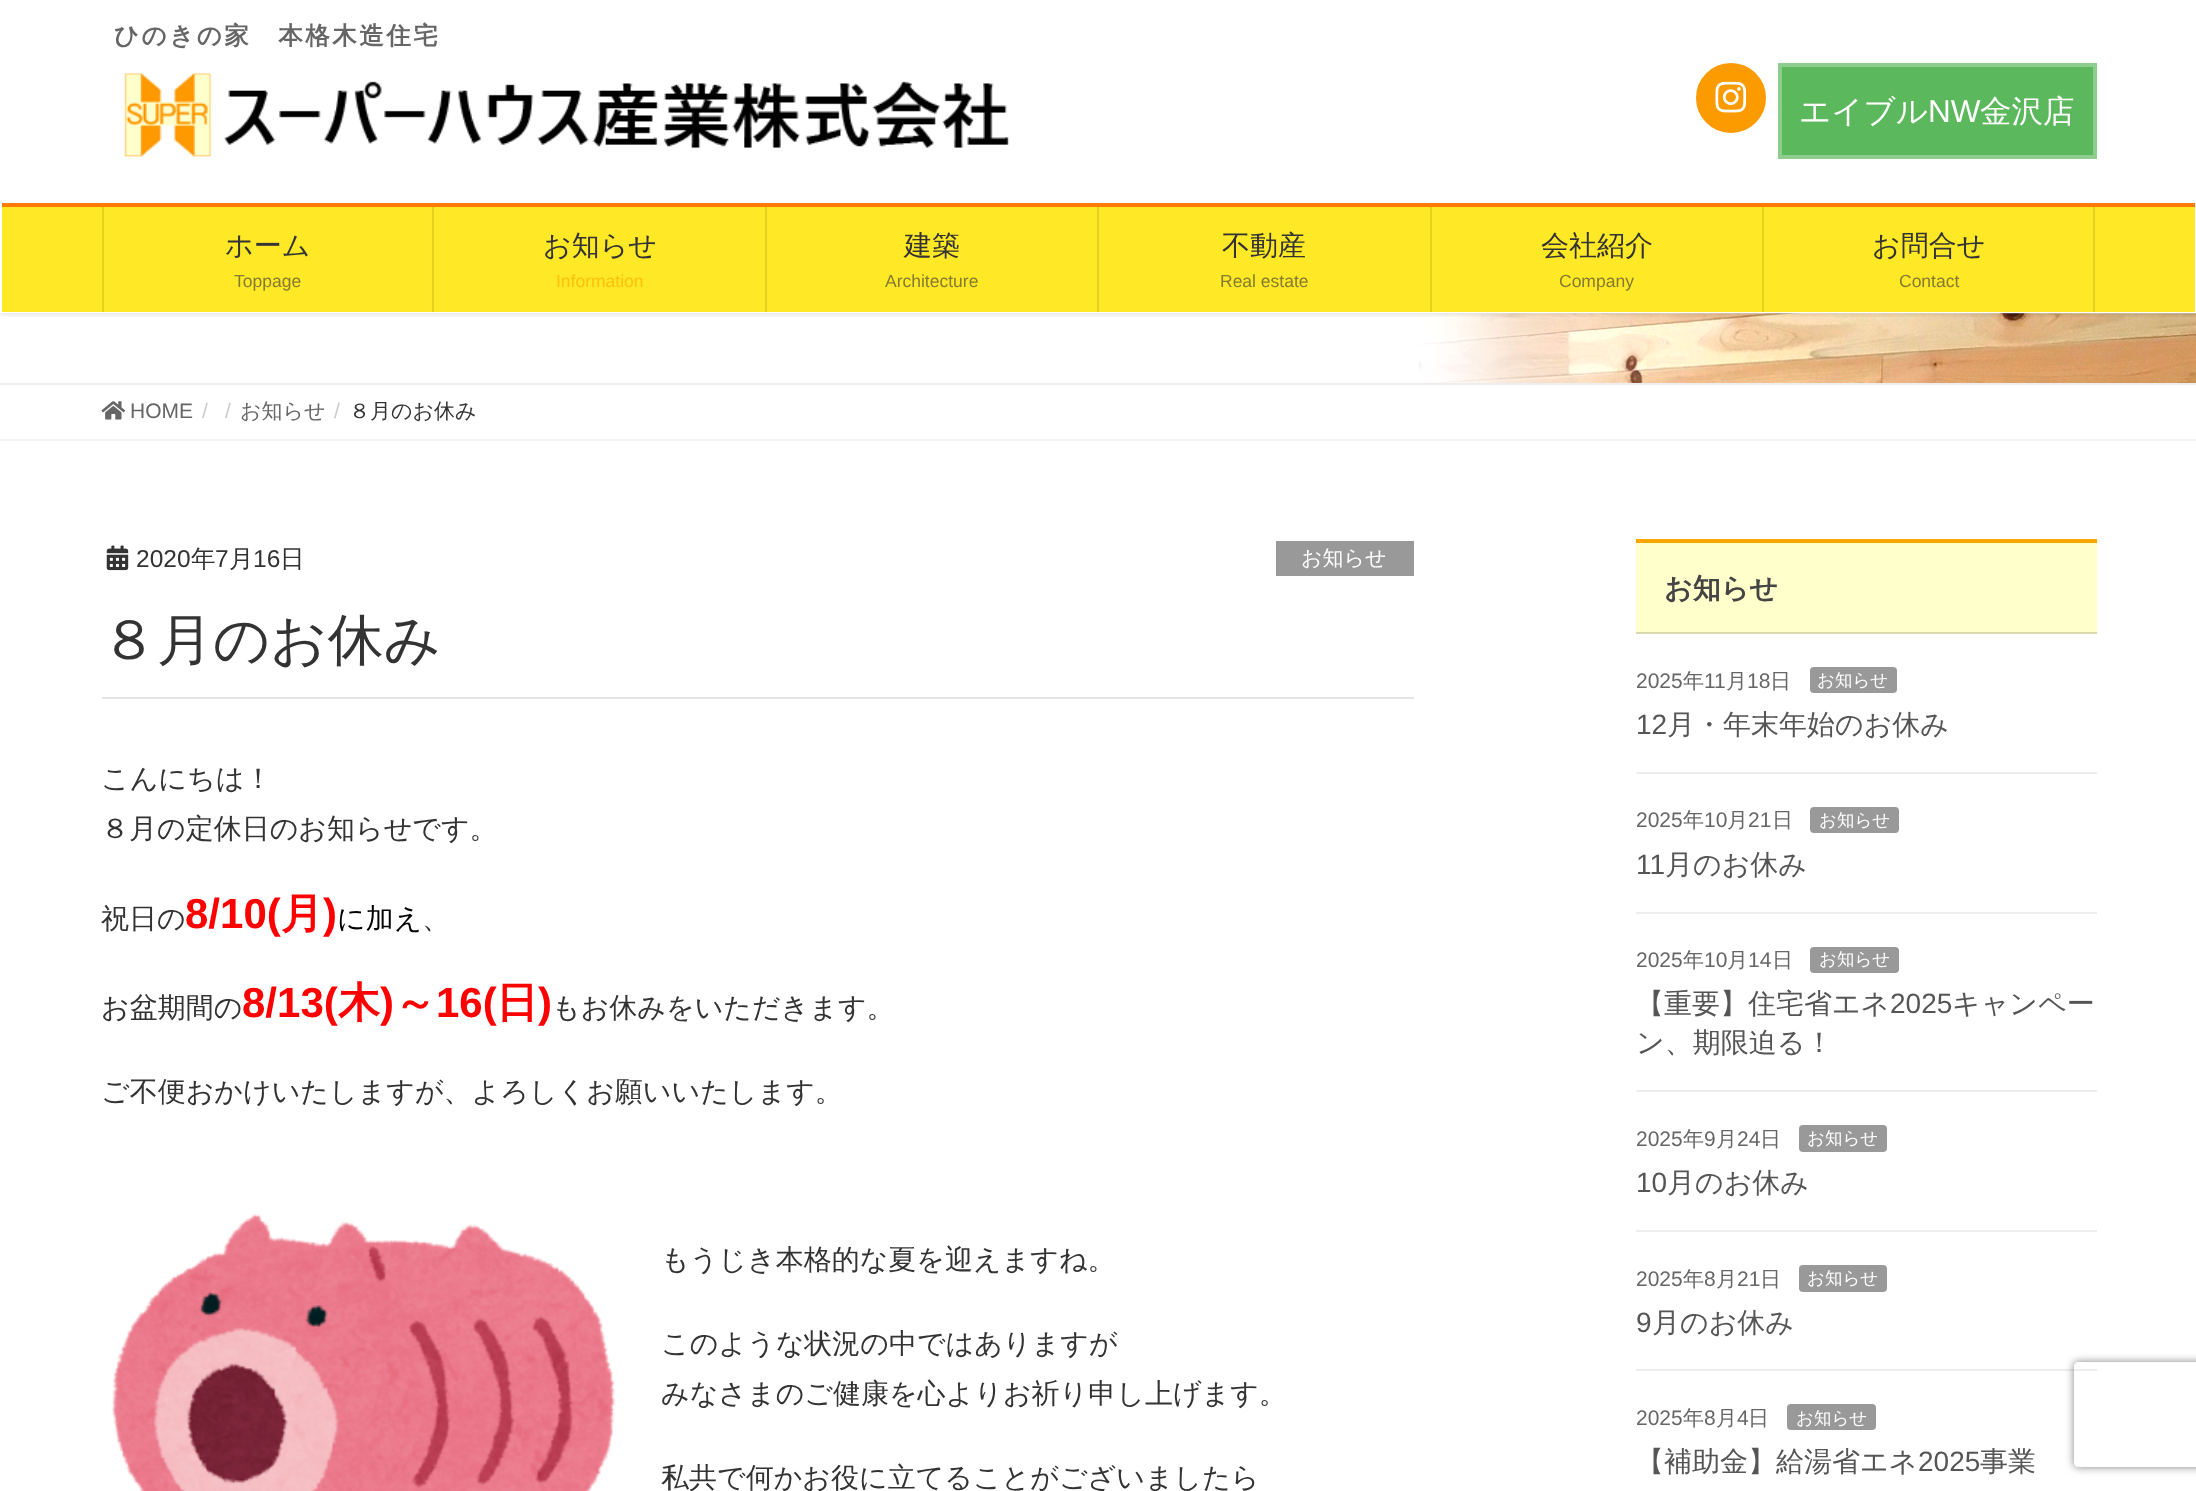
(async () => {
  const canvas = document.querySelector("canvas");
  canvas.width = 2196;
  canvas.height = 1491;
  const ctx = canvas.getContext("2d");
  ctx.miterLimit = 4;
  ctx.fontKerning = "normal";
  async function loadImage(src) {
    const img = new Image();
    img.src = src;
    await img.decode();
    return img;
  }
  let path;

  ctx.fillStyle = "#ffffff";
  ctx.fillRect(0, 0, 2196, 1491);
  ctx.drawImage(await loadImage("img/3.png"), 1419, 313, 777, 70);
  ctx.save();
  ctx.beginPath();
  ctx.rect(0, 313, 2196, 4);
  ctx.clip();
  ctx.fillStyle = "rgba(0, 0, 0, 0.1)";
  ctx.filter = "blur(2.5px)";
  ctx.beginPath();
  ctx.rect(0, 2, 2196, 313);
  ctx.fill();
  ctx.filter = "none";
  ctx.restore();
  ctx.drawImage(await loadImage("img/1.png"), 124, 73, 885, 84);
  ctx.fillStyle = "#fc9b00";
  ctx.beginPath();
  ctx.arc(1731, 98, 34, 0, Math.PI * 2);
  ctx.fill();
  ctx.strokeStyle = "#fc9b00";
  ctx.lineWidth = 2;
  ctx.stroke();
  ctx.drawImage(await loadImage("img/2.png"), 1715, 81, 32, 32);
  ctx.fillStyle = "#5cb85c";
  ctx.beginPath();
  ctx.rect(1780, 65, 315, 92);
  ctx.fill();
  ctx.strokeStyle = "#8dcd8d";
  ctx.lineWidth = 4;
  ctx.stroke();
  for (const [x, y, w, h, color] of [
    [2, 207, 2193, 105, "#ffe826"],
    [2, 203, 2193, 4, "#ff7c00"],
    [102, 207, 2, 105, "#e6d122"],
    [432, 207, 2, 105, "#e6d122"],
    [765, 207, 2, 105, "#e6d122"],
    [1097, 207, 2, 105, "#e6d122"],
    [1430, 207, 2, 105, "#e6d122"],
    [2093, 207, 2, 105, "#e6d122"],
    [1762, 207, 2, 105, "#e6d122"],
    [0, 383, 2196, 2, "#eeeeee"],
    [0, 439, 2196, 2, "#f3f3f3"],
  ]) {
    ctx.fillStyle = color;
    ctx.fillRect(x, y, w, h);
  }
  ctx.drawImage(await loadImage("img/4.png"), 101, 401, 25, 19);
  ctx.fillStyle = "#e5e5e5";
  ctx.fillRect(102, 697, 1312, 2);
  ctx.drawImage(await loadImage("img/5.png"), 106, 545, 23, 26);
  ctx.fillStyle = "#999999";
  ctx.fillRect(1276, 541, 138, 35);
  ctx.drawImage(await loadImage("img/6.png"), 111, 1214, 504, 277);
  for (const [x, y, w, h, color] of [
    [1636, 543, 461, 89, "#ffffcc"],
    [1636, 539, 461, 4, "#ffa500"],
    [1636, 632, 461, 2, "#d9d9ad"],
    [1636, 772, 461, 2, "#ededed"],
  ]) {
    ctx.fillStyle = color;
    ctx.fillRect(x, y, w, h);
  }
  ctx.fillStyle = "#999999";
  ctx.beginPath();
  ctx.roundRect(1810, 667, 87, 26, 4);
  ctx.fill();
  ctx.fillStyle = "#ededed";
  ctx.fillRect(1636, 912, 461, 2);
  ctx.fillStyle = "#999999";
  ctx.beginPath();
  ctx.roundRect(1810, 807, 89, 26, 4);
  ctx.fill();
  ctx.fillStyle = "#ededed";
  ctx.fillRect(1636, 1090, 461, 2);
  ctx.fillStyle = "#999999";
  ctx.beginPath();
  ctx.roundRect(1810, 947, 89, 26, 4);
  ctx.fill();
  ctx.fillStyle = "#ededed";
  ctx.fillRect(1636, 1230, 461, 2);
  ctx.fillStyle = "#999999";
  ctx.beginPath();
  ctx.roundRect(1799, 1125, 88, 27, 4);
  ctx.fill();
  ctx.fillStyle = "#ededed";
  ctx.fillRect(1636, 1369, 461, 2);
  ctx.fillStyle = "#999999";
  ctx.beginPath();
  ctx.roundRect(1799, 1265, 88, 27, 4);
  ctx.fill();
  ctx.beginPath();
  ctx.roundRect(1787, 1404, 89, 26, 4);
  ctx.fill();
  ctx.save();
  path = new Path2D("M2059 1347H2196V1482H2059ZM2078 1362H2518C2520 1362 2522 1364 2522 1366V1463C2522 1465 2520 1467 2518 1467H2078C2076 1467 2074 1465 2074 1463V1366C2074 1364 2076 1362 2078 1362Z");
  ctx.clip(path, "evenodd");
  ctx.fillStyle = "#808080";
  ctx.filter = "blur(4.5px)";
  ctx.beginPath();
  ctx.roundRect(2074, 1362, 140, 105, 4);
  ctx.fill();
  ctx.filter = "none";
  ctx.restore();
  ctx.letterSpacing = "2.5px";
  ctx.font = "bold 24.5px WenQuanYi Zen Hei";
  ctx.fillStyle = "#666666";
  ctx.fillText("ひのきの家　本格木造住宅", 114, 44);
  ctx.letterSpacing = "0px";
  ctx.font = "500 31.5px WenQuanYi Zen Hei";
  ctx.fillStyle = "#ffffff";
  ctx.fillText("エイブル", 1799, 122);
  ctx.font = "31.5px Liberation Sans";
  ctx.fillText("NW", 1928, 122);
  ctx.font = "500 31.5px WenQuanYi Zen Hei";
  ctx.fillText("金沢店", 1980, 122);
  ctx.font = "500 28px WenQuanYi Zen Hei";
  ctx.fillStyle = "#333333";
  ctx.fillText("ホーム", 225, 255);
  ctx.font = "17.5px Liberation Sans";
  ctx.fillStyle = "#857b2e";
  ctx.fillText("Toppage", 234, 287);
  ctx.font = "500 28px WenQuanYi Zen Hei";
  ctx.fillStyle = "#333333";
  ctx.fillText("お知らせ", 543, 255);
  ctx.font = "17.5px Liberation Sans";
  ctx.fillStyle = "#ffc00f";
  ctx.fillText("Information", 556, 287);
  ctx.font = "500 28px WenQuanYi Zen Hei";
  ctx.fillStyle = "#333333";
  ctx.fillText("建築", 904, 255);
  ctx.font = "17.5px Liberation Sans";
  ctx.fillStyle = "#857b2e";
  ctx.fillText("Architecture", 885, 287);
  ctx.font = "500 28px WenQuanYi Zen Hei";
  ctx.fillStyle = "#333333";
  ctx.fillText("不動産", 1222, 255);
  ctx.font = "17.5px Liberation Sans";
  ctx.fillStyle = "#857b2e";
  ctx.fillText("Real estate", 1220, 287);
  ctx.font = "500 28px WenQuanYi Zen Hei";
  ctx.fillStyle = "#333333";
  ctx.fillText("会社紹介", 1541, 255);
  ctx.font = "17.5px Liberation Sans";
  ctx.fillStyle = "#857b2e";
  ctx.fillText("Company", 1559, 287);
  ctx.font = "500 28px WenQuanYi Zen Hei";
  ctx.fillStyle = "#333333";
  ctx.fillText("お問合せ", 1872, 255);
  ctx.font = "17.5px Liberation Sans";
  ctx.fillStyle = "#857b2e";
  ctx.fillText("Contact", 1899, 287);
  ctx.font = "21px Liberation Sans";
  ctx.fillStyle = "#666666";
  ctx.fillText("HOME", 130, 418);
  ctx.fillStyle = "#cccccc";
  ctx.fillText("/", 202, 418);
  ctx.fillText("/", 225, 418);
  ctx.font = "500 21px WenQuanYi Zen Hei";
  ctx.fillStyle = "#666666";
  ctx.fillText("お知らせ", 240, 418);
  ctx.font = "21px Liberation Sans";
  ctx.fillStyle = "#cccccc";
  ctx.fillText("/", 334, 418);
  ctx.font = "500 21px WenQuanYi Zen Hei";
  ctx.fillStyle = "#333333";
  ctx.fillText("８月のお休み", 349, 418);
  ctx.font = "24.5px Liberation Sans";
  ctx.fillText("2020", 136, 567);
  ctx.font = "500 24.5px WenQuanYi Zen Hei";
  ctx.fillText("年", 191, 567);
  ctx.font = "24.5px Liberation Sans";
  ctx.fillText("7", 215, 567);
  ctx.font = "500 24.5px WenQuanYi Zen Hei";
  ctx.fillText("月", 229, 567);
  ctx.font = "24.5px Liberation Sans";
  ctx.fillText("16", 253, 567);
  ctx.font = "500 24.5px WenQuanYi Zen Hei";
  ctx.fillText("日", 280, 567);
  ctx.font = "500 21px WenQuanYi Zen Hei";
  ctx.fillStyle = "#ffffff";
  ctx.fillText("お知らせ", 1301, 565);
  ctx.font = "500 56px WenQuanYi Zen Hei";
  ctx.fillStyle = "#333333";
  ctx.fillText("８月のお休み", 101, 659);
  ctx.font = "500 28px WenQuanYi Zen Hei";
  for (const [text, x, y] of [
    ["こんにちは！", 101, 788],
    ["８月の定休日のお知らせです。", 101, 838],
    ["祝日の", 101, 928],
  ]) {
    ctx.fillText(text, x, y);
  }
  ctx.font = "bold 42px Liberation Sans";
  ctx.fillStyle = "#ff0000";
  ctx.fillText("8/10(", 185, 928);
  ctx.font = "bold 42px WenQuanYi Zen Hei";
  ctx.fillText("月", 281, 928);
  ctx.font = "bold 42px Liberation Sans";
  ctx.fillText(")", 323, 928);
  ctx.font = "500 28px WenQuanYi Zen Hei";
  ctx.fillStyle = "#000000";
  ctx.fillText("に加え", 337, 928);
  ctx.fillStyle = "#333333";
  ctx.fillText("、", 422, 928);
  ctx.fillText("お盆期間の", 101, 1017);
  ctx.font = "bold 42px Liberation Sans";
  ctx.fillStyle = "#ff0000";
  ctx.fillText("8/13(", 242, 1017);
  ctx.font = "bold 42px WenQuanYi Zen Hei";
  ctx.fillText("木", 338, 1017);
  ctx.font = "bold 42px Liberation Sans";
  ctx.fillText(")", 380, 1017);
  ctx.font = "bold 42px WenQuanYi Zen Hei";
  ctx.fillText("～", 394, 1017);
  ctx.font = "bold 42px Liberation Sans";
  ctx.fillText("16(", 436, 1017);
  ctx.font = "bold 42px WenQuanYi Zen Hei";
  ctx.fillText("日", 496, 1017);
  ctx.font = "bold 42px Liberation Sans";
  ctx.fillText(")", 538, 1017);
  ctx.font = "500 28px WenQuanYi Zen Hei";
  ctx.fillStyle = "#333333";
  for (const [text, x, y] of [
    ["もお休みをいただきます。", 552, 1017],
    ["ご不便おかけいたしますが、よろしくお願いいたします。", 101, 1101],
    ["もうじき本格的な夏を迎えますね。", 661, 1269],
    ["このような状況の中ではありますが", 661, 1353],
    ["みなさまのご健康を心よりお祈り申し上げます。", 661, 1403],
    ["私共で何かお役に立てることがございましたら", 661, 1487],
  ]) {
    ctx.fillText(text, x, y);
  }
  ctx.font = "bold 28px WenQuanYi Zen Hei";
  ctx.fillStyle = "#444444";
  ctx.fillText("お知らせ", 1664, 598);
  ctx.font = "21px Liberation Sans";
  ctx.fillStyle = "#666666";
  ctx.fillText("2025", 1636, 688);
  ctx.font = "500 21px WenQuanYi Zen Hei";
  ctx.fillText("年", 1683, 688);
  ctx.font = "21px Liberation Sans";
  ctx.fillText("11", 1704, 688);
  ctx.font = "500 21px WenQuanYi Zen Hei";
  ctx.fillText("月", 1726, 688);
  ctx.font = "21px Liberation Sans";
  ctx.fillText("18", 1747, 688);
  ctx.font = "500 21px WenQuanYi Zen Hei";
  ctx.fillText("日", 1770, 688);
  ctx.font = "500 17.5px WenQuanYi Zen Hei";
  ctx.fillStyle = "#ffffff";
  ctx.fillText("お知らせ", 1817, 686);
  ctx.font = "28px Liberation Sans";
  ctx.fillStyle = "#555555";
  ctx.fillText("12", 1636, 734);
  ctx.font = "500 28px WenQuanYi Zen Hei";
  ctx.fillText("月・年末年始のお休み", 1667, 734);
  ctx.font = "21px Liberation Sans";
  ctx.fillStyle = "#666666";
  ctx.fillText("2025", 1636, 827);
  ctx.font = "500 21px WenQuanYi Zen Hei";
  ctx.fillText("年", 1683, 827);
  ctx.font = "21px Liberation Sans";
  ctx.fillText("10", 1704, 827);
  ctx.font = "500 21px WenQuanYi Zen Hei";
  ctx.fillText("月", 1727, 827);
  ctx.font = "21px Liberation Sans";
  ctx.fillText("21", 1748, 827);
  ctx.font = "500 21px WenQuanYi Zen Hei";
  ctx.fillText("日", 1772, 827);
  ctx.font = "500 17.5px WenQuanYi Zen Hei";
  ctx.fillStyle = "#ffffff";
  ctx.fillText("お知らせ", 1819, 826);
  ctx.font = "28px Liberation Sans";
  ctx.fillStyle = "#555555";
  ctx.fillText("11", 1636, 874);
  ctx.font = "500 28px WenQuanYi Zen Hei";
  ctx.fillText("月のお休み", 1665, 874);
  ctx.font = "21px Liberation Sans";
  ctx.fillStyle = "#666666";
  ctx.fillText("2025", 1636, 967);
  ctx.font = "500 21px WenQuanYi Zen Hei";
  ctx.fillText("年", 1683, 967);
  ctx.font = "21px Liberation Sans";
  ctx.fillText("10", 1704, 967);
  ctx.font = "500 21px WenQuanYi Zen Hei";
  ctx.fillText("月", 1727, 967);
  ctx.font = "21px Liberation Sans";
  ctx.fillText("14", 1748, 967);
  ctx.font = "500 21px WenQuanYi Zen Hei";
  ctx.fillText("日", 1772, 967);
  ctx.font = "500 17.5px WenQuanYi Zen Hei";
  ctx.fillStyle = "#ffffff";
  ctx.fillText("お知らせ", 1819, 965);
  ctx.font = "500 28px WenQuanYi Zen Hei";
  ctx.fillStyle = "#555555";
  ctx.fillText("【重要】住宅省エネ", 1636, 1013);
  ctx.font = "28px Liberation Sans";
  ctx.fillText("2025", 1890, 1013);
  ctx.font = "500 28px WenQuanYi Zen Hei";
  ctx.fillText("キャンペー", 1952, 1013);
  ctx.fillText("ン、期限迫る！", 1636, 1052);
  ctx.font = "21px Liberation Sans";
  ctx.fillStyle = "#666666";
  ctx.fillText("2025", 1636, 1146);
  ctx.font = "500 21px WenQuanYi Zen Hei";
  ctx.fillText("年", 1683, 1146);
  ctx.font = "21px Liberation Sans";
  ctx.fillText("9", 1704, 1146);
  ctx.font = "500 21px WenQuanYi Zen Hei";
  ctx.fillText("月", 1716, 1146);
  ctx.font = "21px Liberation Sans";
  ctx.fillText("24", 1737, 1146);
  ctx.font = "500 21px WenQuanYi Zen Hei";
  ctx.fillText("日", 1760, 1146);
  ctx.font = "500 17.5px WenQuanYi Zen Hei";
  ctx.fillStyle = "#ffffff";
  ctx.fillText("お知らせ", 1807, 1144);
  ctx.font = "28px Liberation Sans";
  ctx.fillStyle = "#555555";
  ctx.fillText("10", 1636, 1192);
  ctx.font = "500 28px WenQuanYi Zen Hei";
  ctx.fillText("月のお休み", 1667, 1192);
  ctx.font = "21px Liberation Sans";
  ctx.fillStyle = "#666666";
  ctx.fillText("2025", 1636, 1286);
  ctx.font = "500 21px WenQuanYi Zen Hei";
  ctx.fillText("年", 1683, 1286);
  ctx.font = "21px Liberation Sans";
  ctx.fillText("8", 1704, 1286);
  ctx.font = "500 21px WenQuanYi Zen Hei";
  ctx.fillText("月", 1716, 1286);
  ctx.font = "21px Liberation Sans";
  ctx.fillText("21", 1737, 1286);
  ctx.font = "500 21px WenQuanYi Zen Hei";
  ctx.fillText("日", 1760, 1286);
  ctx.font = "500 17.5px WenQuanYi Zen Hei";
  ctx.fillStyle = "#ffffff";
  ctx.fillText("お知らせ", 1807, 1284);
  ctx.font = "28px Liberation Sans";
  ctx.fillStyle = "#555555";
  ctx.fillText("9", 1636, 1332);
  ctx.font = "500 28px WenQuanYi Zen Hei";
  ctx.fillText("月のお休み", 1652, 1332);
  ctx.font = "21px Liberation Sans";
  ctx.fillStyle = "#666666";
  ctx.fillText("2025", 1636, 1425);
  ctx.font = "500 21px WenQuanYi Zen Hei";
  ctx.fillText("年", 1683, 1425);
  ctx.font = "21px Liberation Sans";
  ctx.fillText("8", 1704, 1425);
  ctx.font = "500 21px WenQuanYi Zen Hei";
  ctx.fillText("月", 1716, 1425);
  ctx.font = "21px Liberation Sans";
  ctx.fillText("4", 1737, 1425);
  ctx.font = "500 21px WenQuanYi Zen Hei";
  ctx.fillText("日", 1748, 1425);
  ctx.font = "500 17.5px WenQuanYi Zen Hei";
  ctx.fillStyle = "#ffffff";
  ctx.fillText("お知らせ", 1796, 1424);
  ctx.font = "500 28px WenQuanYi Zen Hei";
  ctx.fillStyle = "#555555";
  ctx.fillText("【補助金】給湯省エネ", 1636, 1471);
  ctx.font = "28px Liberation Sans";
  ctx.fillText("2025", 1918, 1471);
  ctx.font = "500 28px WenQuanYi Zen Hei";
  ctx.fillText("事業", 1980, 1471);
})();
